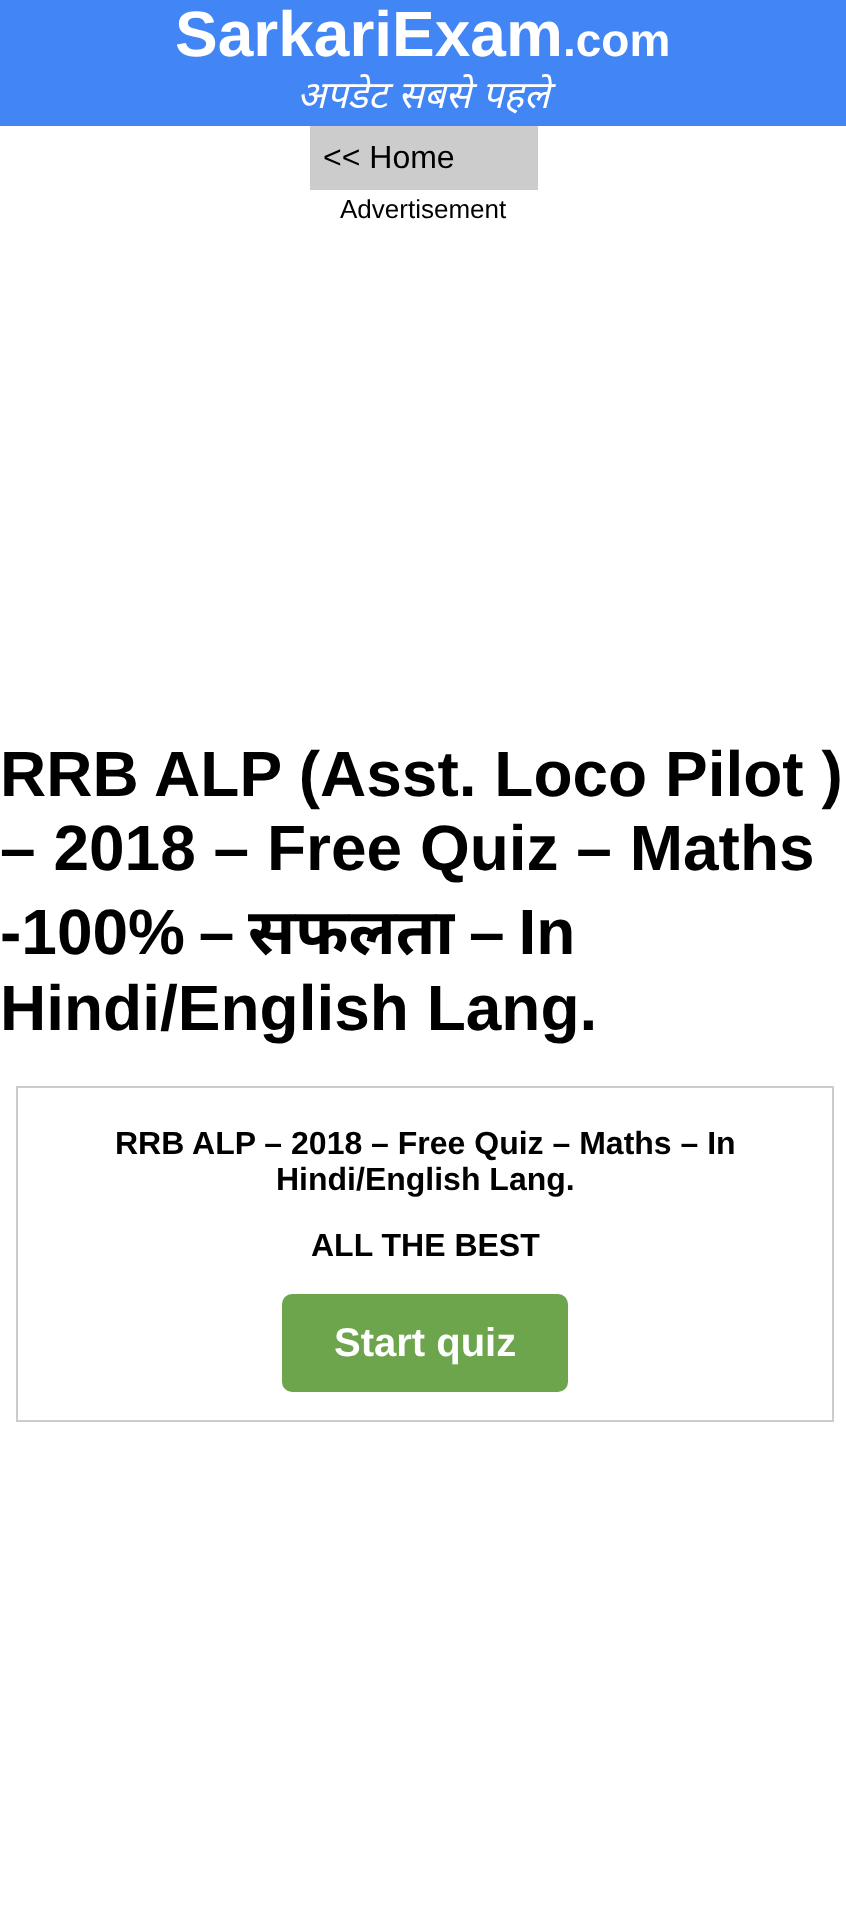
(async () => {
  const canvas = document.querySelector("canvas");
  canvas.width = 846;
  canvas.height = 1910;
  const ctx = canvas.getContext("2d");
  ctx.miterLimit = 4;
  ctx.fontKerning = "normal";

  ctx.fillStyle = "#ffffff";
  ctx.fillRect(0, 0, 846, 1910);
  ctx.fillStyle = "#4285f4";
  ctx.fillRect(0, 0, 846, 126);
  ctx.fillStyle = "#cccccc";
  ctx.fillRect(310, 126, 228, 64);
  ctx.strokeStyle = "#cccccc";
  ctx.lineWidth = 2;
  ctx.strokeRect(17, 1087, 816, 334);
  ctx.fillStyle = "#6ca54c";
  ctx.beginPath();
  ctx.roundRect(283, 1295, 284, 96, 9);
  ctx.fill();
  ctx.strokeStyle = "#6ca54c";
  ctx.stroke();
  ctx.font = "bold 64px Liberation Sans";
  ctx.fillStyle = "#ffffff";
  ctx.fillText("SarkariExam", 175, 56);
  ctx.font = "bold 46px Liberation Sans";
  ctx.fillText(".com", 563, 56);
  ctx.wordSpacing = "1px";
  ctx.font = "italic 38px Noto Sans";
  ctx.fillText("अपडेट सबसे पहले", 297, 108);
  ctx.wordSpacing = "0px";
  ctx.font = "32px Liberation Sans";
  ctx.fillStyle = "#000000";
  ctx.fillText("<< Home", 323, 168);
  ctx.font = "26px Liberation Sans";
  ctx.fillText("Advertisement", 340, 218);
  ctx.font = "bold 64px Liberation Sans";
  ctx.fillText("RRB ALP (Asst. Loco Pilot )", 0, 796);
  ctx.fillText("– 2018 – Free Quiz – Maths", 0, 870);
  ctx.wordSpacing = "-4px";
  ctx.fillText("-100% –", 0, 954);
  ctx.wordSpacing = "0px";
  ctx.font = "bold 64px Noto Sans";
  ctx.fillText("सफलता", 248, 954);
  ctx.wordSpacing = "-4px";
  ctx.font = "bold 64px Liberation Sans";
  ctx.fillText("– In", 469, 954);
  ctx.wordSpacing = "0px";
  ctx.fillText("Hindi/English Lang.", 0, 1030);
  ctx.font = "bold 32px Liberation Sans";
  for (const [text, x, y] of [
    ["RRB ALP – 2018 – Free Quiz – Maths – In", 115, 1154],
    ["Hindi/English Lang.", 276, 1190],
    ["ALL THE BEST", 311, 1256],
  ]) {
    ctx.fillText(text, x, y);
  }
  ctx.font = "bold 40px Liberation Sans";
  ctx.fillStyle = "#ffffff";
  ctx.fillText("Start quiz", 334, 1356);
})();
